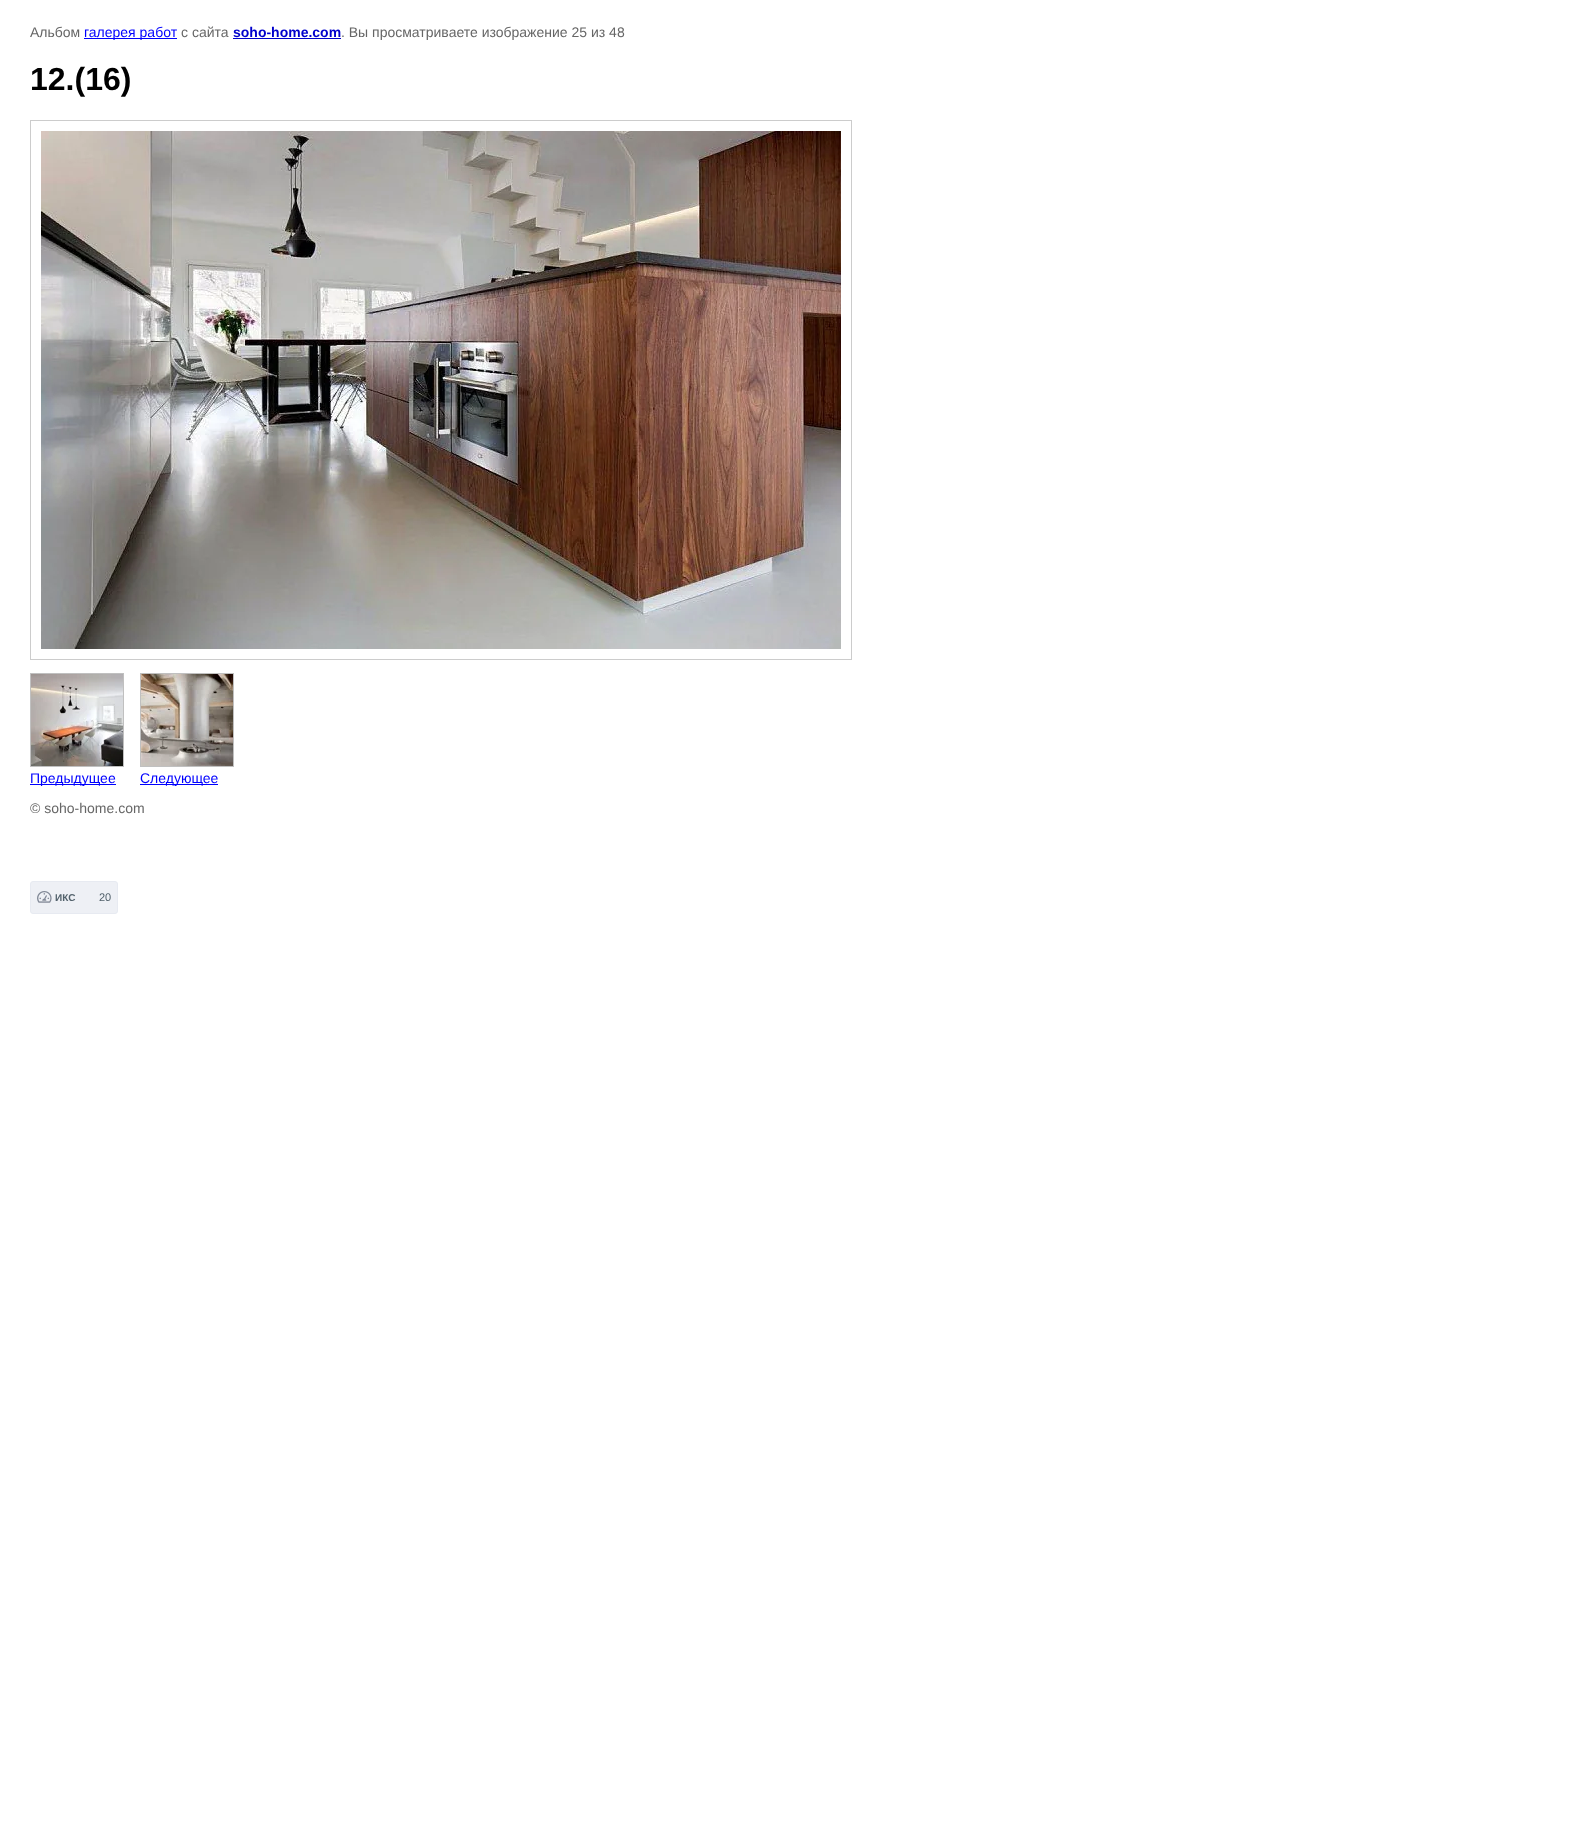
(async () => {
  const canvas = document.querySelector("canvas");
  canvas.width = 1571;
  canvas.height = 1823;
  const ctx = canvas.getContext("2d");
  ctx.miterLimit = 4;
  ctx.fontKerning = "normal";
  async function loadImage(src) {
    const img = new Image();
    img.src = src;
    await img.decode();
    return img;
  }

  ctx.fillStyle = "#ffffff";
  ctx.fillRect(0, 0, 1571, 1823);
  ctx.fillStyle = "#0000ff";
  ctx.fillRect(84, 38, 93, 1);
  ctx.fillStyle = "#0000cc";
  ctx.fillRect(233, 38, 108, 1);
  ctx.strokeStyle = "#cccccc";
  ctx.strokeRect(30.5, 120.5, 821, 539);
  ctx.drawImage(await loadImage("img/1.png"), 41, 131, 800, 518);
  ctx.strokeStyle = "#c0c0c0";
  ctx.strokeRect(30.5, 673.5, 93, 93);
  ctx.drawImage(await loadImage("img/2.png"), 31, 674, 92, 92);
  ctx.fillStyle = "#0000ff";
  ctx.fillRect(30, 784, 86, 1);
  ctx.strokeRect(140.5, 673.5, 93, 93);
  ctx.drawImage(await loadImage("img/3.png"), 141, 674, 92, 92);
  ctx.fillRect(140, 784, 78, 1);
  ctx.fillStyle = "#eef0f5";
  ctx.beginPath();
  ctx.roundRect(30.5, 881.5, 87, 32, 2.5);
  ctx.fill();
  ctx.strokeStyle = "#e7eaf1";
  ctx.stroke();
  ctx.drawImage(await loadImage("img/4.png"), 37, 891, 15, 12);
  ctx.font = "14px Liberation Sans";
  ctx.fillStyle = "#666666";
  ctx.fillText("Альбом", 30, 37);
  ctx.fillStyle = "#0000ff";
  ctx.fillText("галерея работ", 84, 37);
  ctx.fillStyle = "#666666";
  ctx.fillText("с сайта", 181, 37);
  ctx.font = "bold 14px Liberation Sans";
  ctx.fillStyle = "#0000cc";
  ctx.fillText("soho-home.com", 233, 37);
  ctx.font = "14px Liberation Sans";
  ctx.fillStyle = "#666666";
  ctx.fillText(". Вы просматриваете изображение 25 из 48", 341, 37);
  ctx.font = "bold 32px Liberation Sans";
  ctx.fillStyle = "#000000";
  ctx.fillText("12.(16)", 30, 90);
  ctx.font = "14px Liberation Sans";
  ctx.fillStyle = "#0000ff";
  ctx.fillText("Предыдущее", 30, 783);
  ctx.fillText("Следующее", 140, 783);
  ctx.fillStyle = "#666666";
  ctx.fillText("© soho-home.com", 30, 813);
  ctx.font = "bold 10px Liberation Sans";
  ctx.fillStyle = "#52616b";
  ctx.fillText("ИКС", 55, 901);
  ctx.font = "11px Liberation Sans";
  ctx.fillText("20", 99, 901);
})();
